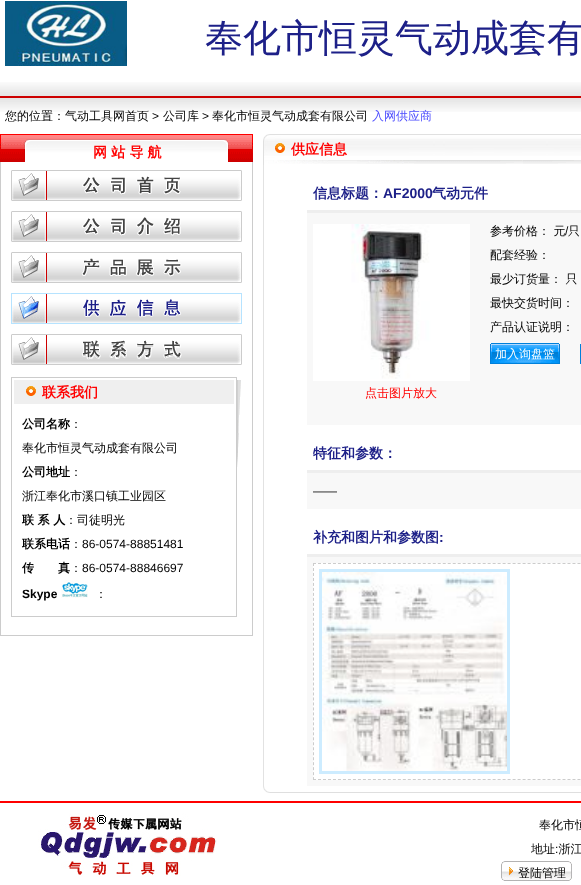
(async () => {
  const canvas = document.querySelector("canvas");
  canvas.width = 581;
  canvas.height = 885;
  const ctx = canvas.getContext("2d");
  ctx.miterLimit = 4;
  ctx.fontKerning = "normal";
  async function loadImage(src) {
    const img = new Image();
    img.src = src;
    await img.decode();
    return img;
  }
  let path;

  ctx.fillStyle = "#ffffff";
  ctx.fillRect(0, 0, 581, 885);
  ctx.drawImage(await loadImage("img/1.png"), 0, 82, 581, 14);
  ctx.drawImage(await loadImage("img/2.png"), 5, 1, 122, 65);
  ctx.drawImage(await loadImage("img/3.png"), 0, 96, 581, 16);
  ctx.drawImage(await loadImage("img/4.png"), 0, 134, 253, 28);
  for (const [x, y, w, h, color] of [
    [252, 162, 1, 474, "#cccccc"],
    [0, 635, 253, 1, "#cccccc"],
    [0, 162, 1, 474, "#cccccc"],
  ]) {
    ctx.fillStyle = color;
    ctx.fillRect(x, y, w, h);
  }
  ctx.drawImage(await loadImage("img/5.png"), 11, 170, 231, 31);
  ctx.drawImage(await loadImage("img/6.png"), 11, 211, 231, 31);
  ctx.drawImage(await loadImage("img/7.png"), 11, 252, 231, 31);
  ctx.drawImage(await loadImage("img/8.png"), 11, 293, 231, 31);
  ctx.drawImage(await loadImage("img/9.png"), 11, 334, 231, 31);
  ctx.drawImage(await loadImage("img/10.png"), 237, 380, 4, 87);
  ctx.strokeStyle = "#cccccc";
  ctx.strokeRect(11.5, 377.5, 225, 239);
  ctx.fillStyle = "#efefef";
  ctx.fillRect(14, 380, 220, 24);
  ctx.drawImage(await loadImage("img/11.png"), 26, 386, 10, 10);
  ctx.drawImage(await loadImage("img/12.png"), 61, 580, 27, 18);
  ctx.drawImage(await loadImage("img/13.png"), 263, 134, 318, 31);
  ctx.drawImage(await loadImage("img/14.png"), 275, 143, 10, 10);
  for (const [x, y, w, h, color] of [
    [263, 165, 1, 621, "#e2e2e2"],
    [307, 210, 274, 3, "#eeeeee"],
    [307, 213, 274, 212, "#f8f8f8"],
  ]) {
    ctx.fillStyle = color;
    ctx.fillRect(x, y, w, h);
  }
  ctx.drawImage(await loadImage("img/15.png"), 490, 343, 70, 21);
  ctx.fillStyle = "#0080da";
  ctx.fillRect(580, 344, 1, 20);
  ctx.drawImage(await loadImage("img/16.png"), 313, 224, 157, 157);
  for (const [x, y, w, h, color] of [
    [307, 470, 274, 3, "#eeeeee"],
    [307, 473, 274, 36, "#f8f8f8"],
    [307, 554, 274, 3, "#eeeeee"],
    [307, 557, 274, 229, "#f8f8f8"],
    [313, 563, 268, 217, "#ffffff"],
  ]) {
    ctx.fillStyle = color;
    ctx.fillRect(x, y, w, h);
  }
  path = new Path2D("M313 563.5H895");
  ctx.setLineDash([3, 1.99]);
  ctx.stroke(path);
  path = new Path2D("M313 779.5H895");
  ctx.stroke(path);
  path = new Path2D("M313.5 563V780");
  ctx.setLineDash([3, 1.98]);
  ctx.stroke(path);
  ctx.strokeStyle = "#cdecff";
  ctx.lineWidth = 3;
  ctx.setLineDash([]);
  ctx.strokeRect(320.5, 570.5, 188, 202);
  ctx.drawImage(await loadImage("img/17.png"), 322, 572, 185, 199);
  ctx.drawImage(await loadImage("img/18.png"), 263, 786, 318, 7);
  ctx.fillStyle = "#ff0000";
  ctx.fillRect(0, 801, 581, 2);
  ctx.drawImage(await loadImage("img/19.png"), 38, 813, 179, 64);
  ctx.drawImage(await loadImage("img/20.png"), 501, 861, 71, 20);
  ctx.font = "500 38px WenQuanYi Zen Hei";
  ctx.fillStyle = "#1d2088";
  ctx.fillText("奉化市恒灵气动成套有", 205, 51);
  ctx.font = "500 12px WenQuanYi Zen Hei";
  ctx.fillStyle = "#000000";
  ctx.fillText("您的位置：气动工具网首页", 5, 120);
  ctx.font = "12px Liberation Sans";
  ctx.fillText(">", 152, 120);
  ctx.font = "500 12px WenQuanYi Zen Hei";
  ctx.fillText("公司库", 163, 120);
  ctx.font = "12px Liberation Sans";
  ctx.fillText(">", 202, 120);
  ctx.font = "500 12px WenQuanYi Zen Hei";
  ctx.fillText("奉化市恒灵气动成套有限公司", 212, 120);
  ctx.fillStyle = "#4c4cfe";
  ctx.fillText("入网供应商", 372, 120);
  ctx.font = "bold 14px WenQuanYi Zen Hei";
  ctx.fillStyle = "#ff0000";
  ctx.fillText("网 站 导 航", 93, 157);
  ctx.fillText("联系我们", 42, 397);
  ctx.font = "bold 12px WenQuanYi Zen Hei";
  ctx.fillStyle = "#000000";
  ctx.fillText("公司名称", 22, 428);
  ctx.font = "500 12px WenQuanYi Zen Hei";
  ctx.fillText("：", 70, 428);
  ctx.fillText("奉化市恒灵气动成套有限公司", 22, 452);
  ctx.font = "bold 12px WenQuanYi Zen Hei";
  ctx.fillText("公司地址", 22, 476);
  ctx.font = "500 12px WenQuanYi Zen Hei";
  ctx.fillText("：", 70, 476);
  ctx.fillText("浙江奉化市溪口镇工业园区", 22, 500);
  ctx.font = "bold 12px WenQuanYi Zen Hei";
  ctx.fillText("联 系 人", 22, 524);
  ctx.font = "500 12px WenQuanYi Zen Hei";
  ctx.fillText("：司徒明光", 65, 524);
  ctx.font = "bold 12px WenQuanYi Zen Hei";
  ctx.fillText("联系电话", 22, 548);
  ctx.font = "500 12px WenQuanYi Zen Hei";
  ctx.fillText("：", 70, 548);
  ctx.font = "12px Liberation Sans";
  ctx.fillText("86-0574-88851481", 82, 548);
  ctx.font = "bold 12px WenQuanYi Zen Hei";
  ctx.fillText("传　　真", 22, 572);
  ctx.font = "500 12px WenQuanYi Zen Hei";
  ctx.fillText("：", 70, 572);
  ctx.font = "12px Liberation Sans";
  ctx.fillText("86-0574-88846697", 82, 572);
  ctx.font = "bold 12px Liberation Sans";
  ctx.fillText("Skype", 22, 598);
  ctx.font = "500 12px WenQuanYi Zen Hei";
  ctx.fillText("：", 95, 598);
  ctx.font = "bold 14px WenQuanYi Zen Hei";
  ctx.fillStyle = "#ff0000";
  ctx.fillText("供应信息", 291, 154);
  ctx.fillStyle = "#1d2088";
  ctx.fillText("信息标题：", 313, 198);
  ctx.font = "bold 14px Liberation Sans";
  ctx.fillText("AF2000", 383, 198);
  ctx.font = "bold 14px WenQuanYi Zen Hei";
  ctx.fillText("气动元件", 432, 198);
  ctx.font = "500 12px WenQuanYi Zen Hei";
  ctx.fillStyle = "#000000";
  ctx.fillText("参考价格： 元", 490, 235);
  ctx.font = "12px Liberation Sans";
  ctx.fillText("/", 565, 235);
  ctx.font = "500 12px WenQuanYi Zen Hei";
  for (const [text, x, y] of [
    ["只", 568, 235],
    ["配套经验：", 490, 259],
    ["最少订货量： 只", 490, 283],
    ["最快交货时间：", 490, 307],
    ["产品认证说明：", 490, 331],
  ]) {
    ctx.fillText(text, x, y);
  }
  ctx.fillStyle = "#ffffff";
  ctx.fillText("加入询盘篮", 495, 358);
  ctx.fillStyle = "#ff0000";
  ctx.fillText("点击图片放大", 365, 397);
  ctx.font = "bold 14px WenQuanYi Zen Hei";
  ctx.fillStyle = "#1d2088";
  ctx.fillText("特征和参数：", 313, 458);
  ctx.font = "12px Liberation Sans";
  ctx.fillStyle = "#000000";
  ctx.fillText("——", 313, 495);
  ctx.font = "bold 14px WenQuanYi Zen Hei";
  ctx.fillStyle = "#1d2088";
  ctx.fillText("补充和图片和参数图", 313, 542);
  ctx.font = "bold 14px Liberation Sans";
  ctx.fillText(":", 439, 542);
  ctx.font = "500 12px WenQuanYi Zen Hei";
  ctx.fillStyle = "#000000";
  ctx.fillText("奉化市恒", 539, 829);
  ctx.fillText("地址 浙江", 531, 853);
  ctx.font = "12px Liberation Sans";
  ctx.fillText(":", 555, 853);
  ctx.font = "500 12px WenQuanYi Zen Hei";
  ctx.fillText("登陆管理", 518, 877);
})();
